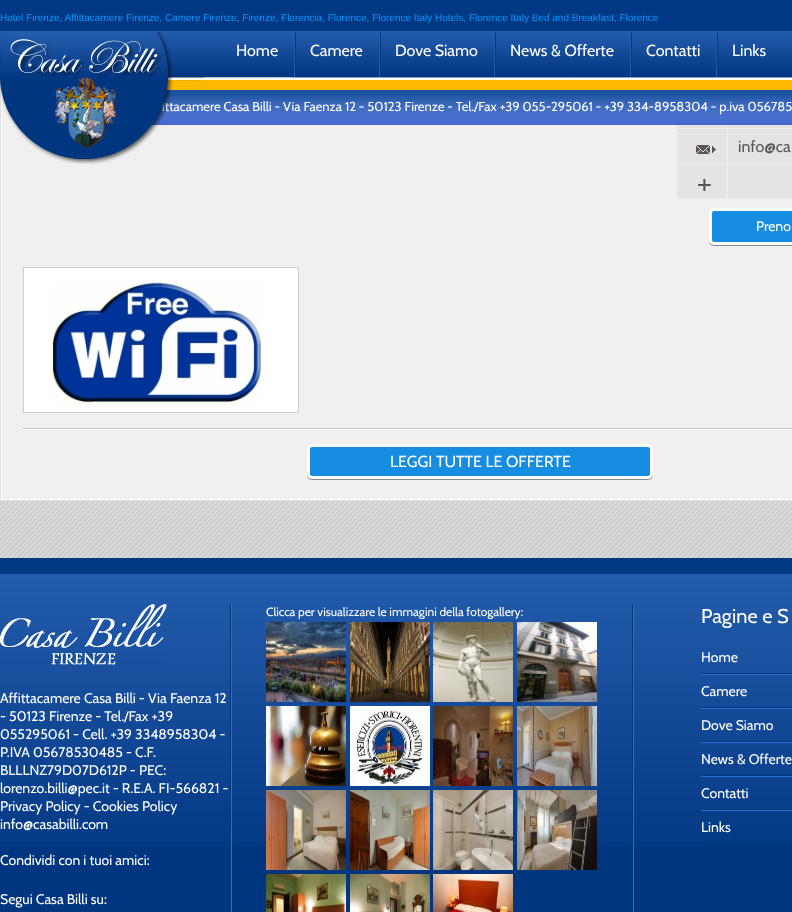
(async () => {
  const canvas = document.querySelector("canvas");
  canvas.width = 792;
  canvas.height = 912;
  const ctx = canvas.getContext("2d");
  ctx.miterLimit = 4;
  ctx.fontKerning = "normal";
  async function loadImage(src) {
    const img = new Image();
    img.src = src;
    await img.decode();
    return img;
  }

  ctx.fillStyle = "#ffffff";
  ctx.fillRect(0, 0, 792, 912);
  ctx.strokeStyle = "#dedede";
  ctx.strokeRect(0.5, -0.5, 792, 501);
  ctx.fillStyle = "#033884";
  ctx.fillRect(0, 0, 792, 31);
  ctx.drawImage(await loadImage("img/1.png"), 0, 31, 792, 47);
  ctx.drawImage(await loadImage("img/3.png"), 294, 31, 2, 46);
  ctx.drawImage(await loadImage("img/3.png"), 379, 31, 2, 46);
  ctx.drawImage(await loadImage("img/3.png"), 494, 31, 2, 46);
  ctx.drawImage(await loadImage("img/3.png"), 630, 31, 2, 46);
  ctx.drawImage(await loadImage("img/3.png"), 716, 31, 2, 46);
  for (const [x, y, w, h, color] of [
    [166, 80, 626, 10, "#feba02"],
    [2, 94, 790, 405, "#f0f0f0"],
    [151, 95, 641, 30, "#0033cc"],
  ]) {
    ctx.fillStyle = color;
    ctx.fillRect(x, y, w, h);
  }
  ctx.drawImage(await loadImage("img/4.png"), 151, 90, 641, 35);
  ctx.drawImage(await loadImage("img/5.png"), 0, 501, 792, 57);
  for (const [x, y, w, h, color] of [
    [677, 125, 50, 3, "#e4e4e4"],
    [728, 125, 64, 3, "#e4e4e4"],
    [677, 129, 50, 34, "#e4e4e4"],
  ]) {
    ctx.fillStyle = color;
    ctx.fillRect(x, y, w, h);
  }
  ctx.drawImage(await loadImage("img/6.png"), 696, 145, 20, 9);
  ctx.fillRect(728, 129, 64, 34);
  ctx.fillRect(677, 164, 50, 34);
  ctx.drawImage(await loadImage("img/7.png"), 698, 179, 13, 12);
  ctx.fillRect(728, 164, 64, 34);
  ctx.fillStyle = "#888888";
  ctx.filter = "blur(0.5px)";
  ctx.beginPath();
  ctx.roundRect(709, 209, 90, 37, 5);
  ctx.fill();
  ctx.filter = "none";
  ctx.fillStyle = "#178de2";
  ctx.beginPath();
  ctx.roundRect(710.5, 209.5, 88, 34, 3.5);
  ctx.fill();
  ctx.strokeStyle = "#ffffff";
  ctx.lineWidth = 3;
  ctx.stroke();
  ctx.fillStyle = "#ffffff";
  ctx.beginPath();
  ctx.rect(23.5, 267.5, 275, 145);
  ctx.fill();
  ctx.strokeStyle = "#cccccc";
  ctx.lineWidth = 1;
  ctx.stroke();
  ctx.drawImage(await loadImage("img/8.png"), 49, 280, 216, 126);
  ctx.fillStyle = "#cccccc";
  ctx.fillRect(22, 428, 770, 1);
  ctx.fillStyle = "#ffffff";
  ctx.fillRect(22, 429, 770, 1);
  ctx.fillStyle = "#888888";
  ctx.filter = "blur(0.5px)";
  ctx.beginPath();
  ctx.roundRect(307, 445, 346, 35, 5);
  ctx.fill();
  ctx.filter = "none";
  ctx.fillStyle = "#178de2";
  ctx.beginPath();
  ctx.roundRect(308.5, 445.5, 343, 32, 3.5);
  ctx.fill();
  ctx.strokeStyle = "#ffffff";
  ctx.lineWidth = 3;
  ctx.stroke();
  ctx.fillStyle = "#003580";
  ctx.fillRect(0, 846, 792, 66);
  ctx.drawImage(await loadImage("img/9.png"), 0, 574, 792, 272);
  ctx.fillStyle = "#033884";
  ctx.fillRect(0, 558, 792, 16);
  ctx.fillStyle = "#003580";
  ctx.fillRect(230, 604, 1, 242);
  ctx.drawImage(await loadImage("img/10.png"), 0, 604, 167, 61);
  ctx.fillRect(632, 604, 1, 242);
  ctx.fillStyle = "#2a70d2";
  ctx.fillRect(231, 604, 1, 308);
  ctx.drawImage(await loadImage("img/11.png"), 266, 622, 80, 80);
  ctx.drawImage(await loadImage("img/12.png"), 350, 622, 80, 80);
  ctx.drawImage(await loadImage("img/13.png"), 433, 622, 80, 80);
  ctx.drawImage(await loadImage("img/14.png"), 517, 622, 80, 80);
  ctx.drawImage(await loadImage("img/15.png"), 266, 706, 80, 80);
  ctx.drawImage(await loadImage("img/16.png"), 350, 706, 80, 80);
  ctx.drawImage(await loadImage("img/17.png"), 433, 706, 80, 80);
  ctx.drawImage(await loadImage("img/18.png"), 517, 706, 80, 80);
  ctx.drawImage(await loadImage("img/19.png"), 266, 790, 80, 80);
  ctx.drawImage(await loadImage("img/20.png"), 350, 790, 80, 80);
  ctx.drawImage(await loadImage("img/21.png"), 433, 790, 80, 80);
  ctx.drawImage(await loadImage("img/22.png"), 517, 790, 80, 80);
  ctx.drawImage(await loadImage("img/23.png"), 266, 874, 80, 38);
  ctx.drawImage(await loadImage("img/24.png"), 350, 874, 80, 38);
  ctx.drawImage(await loadImage("img/25.png"), 433, 874, 80, 38);
  for (const [x, y, w, h, color] of [
    [633, 604, 1, 308, "#2a70d2"],
    [701, 673, 91, 1, "#003580"],
    [701, 674, 91, 1, "#2a70d2"],
    [701, 707, 91, 1, "#003580"],
    [701, 708, 91, 1, "#2a70d2"],
    [701, 741, 91, 1, "#003580"],
    [701, 742, 91, 1, "#2a70d2"],
    [701, 775, 91, 1, "#003580"],
    [701, 776, 91, 1, "#2a70d2"],
    [701, 809, 91, 1, "#003580"],
    [701, 810, 91, 1, "#2a70d2"],
    [701, 843, 91, 1, "#003580"],
  ]) {
    ctx.fillStyle = color;
    ctx.fillRect(x, y, w, h);
  }
  ctx.font = "10px Liberation Sans";
  ctx.fillStyle = "#0896ff";
  ctx.fillText("Hotel Firenze, Affittacamere Firenze, Camere Firenze, Firenze, Florencia, Florence, Florence Italy Hotels, Florence Italy Bed and Breakfast, Florence", 0, 21);
  ctx.font = "16px Cabin";
  ctx.fillStyle = "#ffffff";
  for (const [text, x, y] of [
    ["Home", 236, 56],
    ["Camere", 310, 56],
    ["Dove Siamo", 395, 56],
    ["News & Offerte", 510, 56],
    ["Contatti", 646, 56],
    ["Links", 732, 56],
  ]) {
    ctx.fillText(text, x, y);
  }
  ctx.font = "13px Cabin";
  ctx.fillText("ittacamere Casa Billi - Via Faenza 12 - 50123 Firenze - Tel./Fax +39 055-295061 - +39 334-8958304 - p.iva 056785", 162, 111);
  ctx.drawImage(await loadImage("img/2.png"), 0, 32, 204, 132);
  ctx.font = "16px Cabin";
  ctx.fillStyle = "#585554";
  ctx.fillText("info@ca", 738, 152);
  ctx.font = "14px Cabin";
  ctx.fillStyle = "#ffffff";
  ctx.fillText("Preno", 756, 231);
  ctx.font = "16px Cabin";
  ctx.fillText("LEGGI TUTTE LE OFFERTE", 390, 467);
  ctx.font = "14px Cabin";
  for (const [text, x, y] of [
    ["Affittacamere Casa Billi - Via Faenza 12", 0, 703],
    ["- 50123 Firenze - Tel./Fax +39", 0, 721],
    ["055295061 - Cell. +39 3348958304 -", 0, 739],
    ["P.IVA 05678530485 - C.F.", 0, 757],
    ["BLLLNZ79D07D612P - PEC:", 0, 775],
    ["lorenzo.billi@pec.it - R.E.A. FI-566821 -", 0, 793],
    ["Privacy Policy - Cookies Policy", 0, 811],
    ["info@casabilli.com", 0, 829],
    ["Condividi con i tuoi amici:", 0, 865],
    ["Segui Casa Billi su:", 0, 904],
  ]) {
    ctx.fillText(text, x, y);
  }
  ctx.font = "12px Cabin";
  ctx.fillText("Clicca per visualizzare le immagini della fotogallery:", 266, 616);
  ctx.font = "20px Cabin";
  ctx.fillText("Pagine e S", 701, 623);
  ctx.font = "14px Cabin";
  for (const [text, x, y] of [
    ["Home", 701, 662],
    ["Camere", 701, 696],
    ["Dove Siamo", 701, 730],
    ["News & Offerte", 701, 764],
    ["Contatti", 701, 798],
    ["Links", 701, 832],
  ]) {
    ctx.fillText(text, x, y);
  }
})();
